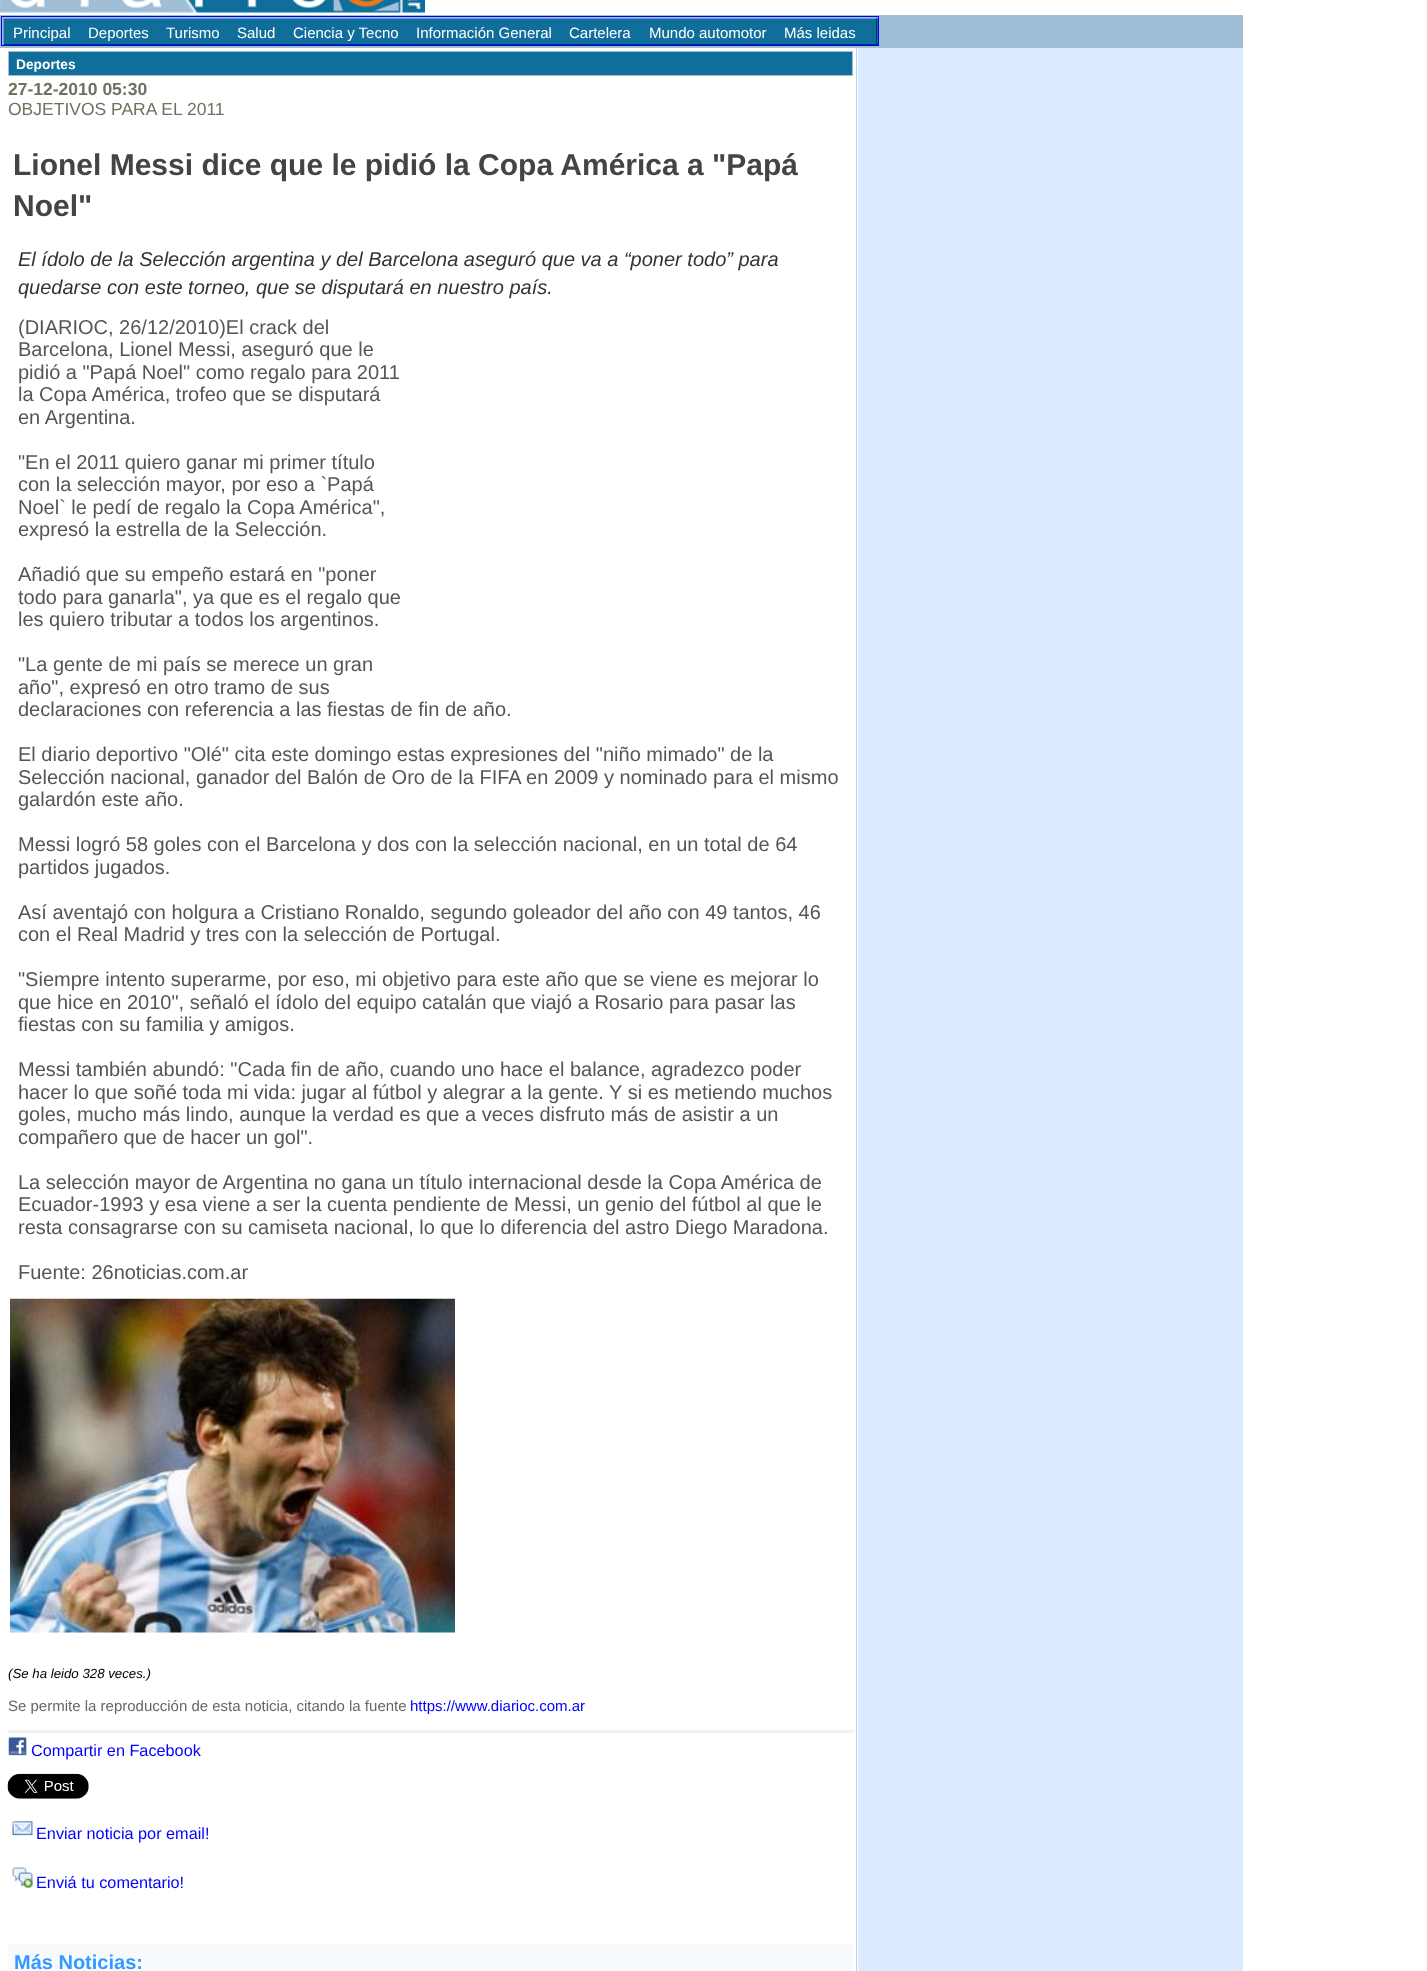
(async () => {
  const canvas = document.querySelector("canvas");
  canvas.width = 1427;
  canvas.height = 1971;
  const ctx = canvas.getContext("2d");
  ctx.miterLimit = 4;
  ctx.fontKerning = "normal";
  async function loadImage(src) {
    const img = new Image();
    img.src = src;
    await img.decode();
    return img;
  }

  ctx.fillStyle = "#ffffff";
  ctx.fillRect(0, 0, 1427, 1971);
  ctx.drawImage(await loadImage("img/1.png"), 0, 0, 425, 13);
  ctx.fillStyle = "#a1bed7";
  ctx.fillRect(0, 15, 1243, 33);
  ctx.strokeStyle = "#0000ff";
  ctx.strokeRect(1.5, 16.5, 877, 29);
  for (const [x, y, w, h, color] of [
    [4, 19, 874, 25, "#106e9b"],
    [3, 18, 875, 1, "#6699cc"],
    [876, 18, 1, 27, "#003366"],
    [3, 44, 875, 1, "#003366"],
    [3, 18, 1, 27, "#6699cc"],
  ]) {
    ctx.fillStyle = color;
    ctx.fillRect(x, y, w, h);
  }
  ctx.fillStyle = "#106e9b";
  ctx.beginPath();
  ctx.rect(8.5, 51.5, 844, 24);
  ctx.fill();
  ctx.strokeStyle = "#a1bed7";
  ctx.stroke();
  ctx.drawImage(await loadImage("img/2.png"), 10, 1298, 445, 335);
  ctx.fillStyle = "#f2f2f2";
  ctx.fillRect(8, 1730, 845, 3);
  ctx.drawImage(await loadImage("img/3.png"), 8, 1737, 19, 19);
  ctx.drawImage(await loadImage("img/4.png"), 7, 1773, 82, 26);
  ctx.drawImage(await loadImage("img/5.png"), 12, 1821, 21, 15);
  ctx.drawImage(await loadImage("img/6.png"), 12, 1867, 21, 21);
  for (const [x, y, w, h, color] of [
    [8, 1944, 845, 27, "#f7fbfd"],
    [856, 48, 1, 1923, "#aed0ff"],
    [858, 48, 385, 1923, "#dbeaff"],
  ]) {
    ctx.fillStyle = color;
    ctx.fillRect(x, y, w, h);
  }
  ctx.font = "15px Liberation Sans";
  ctx.fillStyle = "#ffffff";
  for (const [text, x, y] of [
    ["Principal", 13, 38],
    ["Deportes", 88, 38],
    ["Turismo", 166, 38],
    ["Salud", 237, 38],
    ["Ciencia y Tecno", 293, 38],
    ["Información General", 416, 38],
    ["Cartelera", 569, 38],
    ["Mundo automotor", 649, 38],
    ["Más leidas", 784, 38],
  ]) {
    ctx.fillText(text, x, y);
  }
  ctx.font = "bold 13.75px Liberation Sans";
  ctx.fillText("Deportes", 16, 69);
  ctx.font = "bold 17.5px Liberation Sans";
  ctx.fillStyle = "#707060";
  ctx.fillText("27-12-2010 05:30", 8, 95);
  ctx.font = "17.5px Liberation Sans";
  ctx.fillText("OBJETIVOS PARA EL 2011", 8, 115);
  ctx.font = "bold 30px Liberation Sans";
  ctx.fillStyle = "#444444";
  ctx.fillText("Lionel Messi dice que le pidió la Copa América a \"Papá", 13, 175);
  ctx.fillText("Noel\"", 13, 216);
  ctx.font = "italic 20px Liberation Sans";
  ctx.fillStyle = "#333333";
  ctx.fillText("El ídolo de la Selección argentina y del Barcelona aseguró que va a “poner todo” para", 18, 266);
  ctx.fillText("quedarse con este torneo, que se disputará en nuestro país.", 18, 294);
  ctx.font = "20px Liberation Sans";
  ctx.fillStyle = "#555555";
  for (const [text, x, y] of [
    ["(DIARIOC, 26/12/2010)El crack del", 18, 334],
    ["Barcelona, Lionel Messi, aseguró que le", 18, 356],
    ["pidió a \"Papá Noel\" como regalo para 2011", 18, 379],
    ["la Copa América, trofeo que se disputará", 18, 401],
    ["en Argentina.", 18, 424],
    ["\"En el 2011 quiero ganar mi primer título", 18, 469],
    ["con la selección mayor, por eso a `Papá", 18, 491],
    ["Noel` le pedí de regalo la Copa América\",", 18, 514],
    ["expresó la estrella de la Selección.", 18, 536],
    ["Añadió que su empeño estará en \"poner", 18, 581],
    ["todo para ganarla\", ya que es el regalo que", 18, 604],
    ["les quiero tributar a todos los argentinos.", 18, 626],
    ["\"La gente de mi país se merece un gran", 18, 671],
    ["año\", expresó en otro tramo de sus", 18, 694],
    ["declaraciones con referencia a las fiestas de fin de año.", 18, 716],
    ["El diario deportivo \"Olé\" cita este domingo estas expresiones del \"niño mimado\" de la", 18, 761],
    ["Selección nacional, ganador del Balón de Oro de la FIFA en 2009 y nominado para el mismo", 18, 784],
    ["galardón este año.", 18, 806],
    ["Messi logró 58 goles con el Barcelona y dos con la selección nacional, en un total de 64", 18, 851],
    ["partidos jugados.", 18, 874],
    ["Así aventajó con holgura a Cristiano Ronaldo, segundo goleador del año con 49 tantos, 46", 18, 919],
    ["con el Real Madrid y tres con la selección de Portugal.", 18, 941],
    ["\"Siempre intento superarme, por eso, mi objetivo para este año que se viene es mejorar lo", 18, 986],
    ["que hice en 2010\", señaló el ídolo del equipo catalán que viajó a Rosario para pasar las", 18, 1009],
    ["fiestas con su familia y amigos.", 18, 1031],
    ["Messi también abundó: \"Cada fin de año, cuando uno hace el balance, agradezco poder", 18, 1076],
    ["hacer lo que soñé toda mi vida: jugar al fútbol y alegrar a la gente. Y si es metiendo muchos", 18, 1099],
    ["goles, mucho más lindo, aunque la verdad es que a veces disfruto más de asistir a un", 18, 1121],
    ["compañero que de hacer un gol\".", 18, 1144],
    ["La selección mayor de Argentina no gana un título internacional desde la Copa América de", 18, 1189],
    ["Ecuador-1993 y esa viene a ser la cuenta pendiente de Messi, un genio del fútbol al que le", 18, 1211],
    ["resta consagrarse con su camiseta nacional, lo que lo diferencia del astro Diego Maradona.", 18, 1234],
    ["Fuente: 26noticias.com.ar", 18, 1279],
  ]) {
    ctx.fillText(text, x, y);
  }
  ctx.font = "italic 13.25px Liberation Sans";
  ctx.fillStyle = "#000000";
  ctx.fillText("(Se ha leido 328 veces.)", 8, 1678);
  ctx.font = "15px Liberation Sans";
  ctx.fillStyle = "#666666";
  ctx.fillText("Se permite la reproducción de esta noticia, citando la fuente", 8, 1711);
  ctx.fillStyle = "#0000ff";
  ctx.fillText("https://www.diarioc.com.ar", 410, 1711);
  ctx.font = "16.25px Liberation Sans";
  for (const [text, x, y] of [
    ["Compartir en Facebook", 31, 1756],
    ["Enviar noticia por email!", 36, 1839],
    ["Enviá tu comentario!", 36, 1888],
  ]) {
    ctx.fillText(text, x, y);
  }
  ctx.font = "bold 20px Liberation Sans";
  ctx.fillStyle = "#3399ff";
  ctx.fillText("Más Noticias:", 14, 1969);
})();
